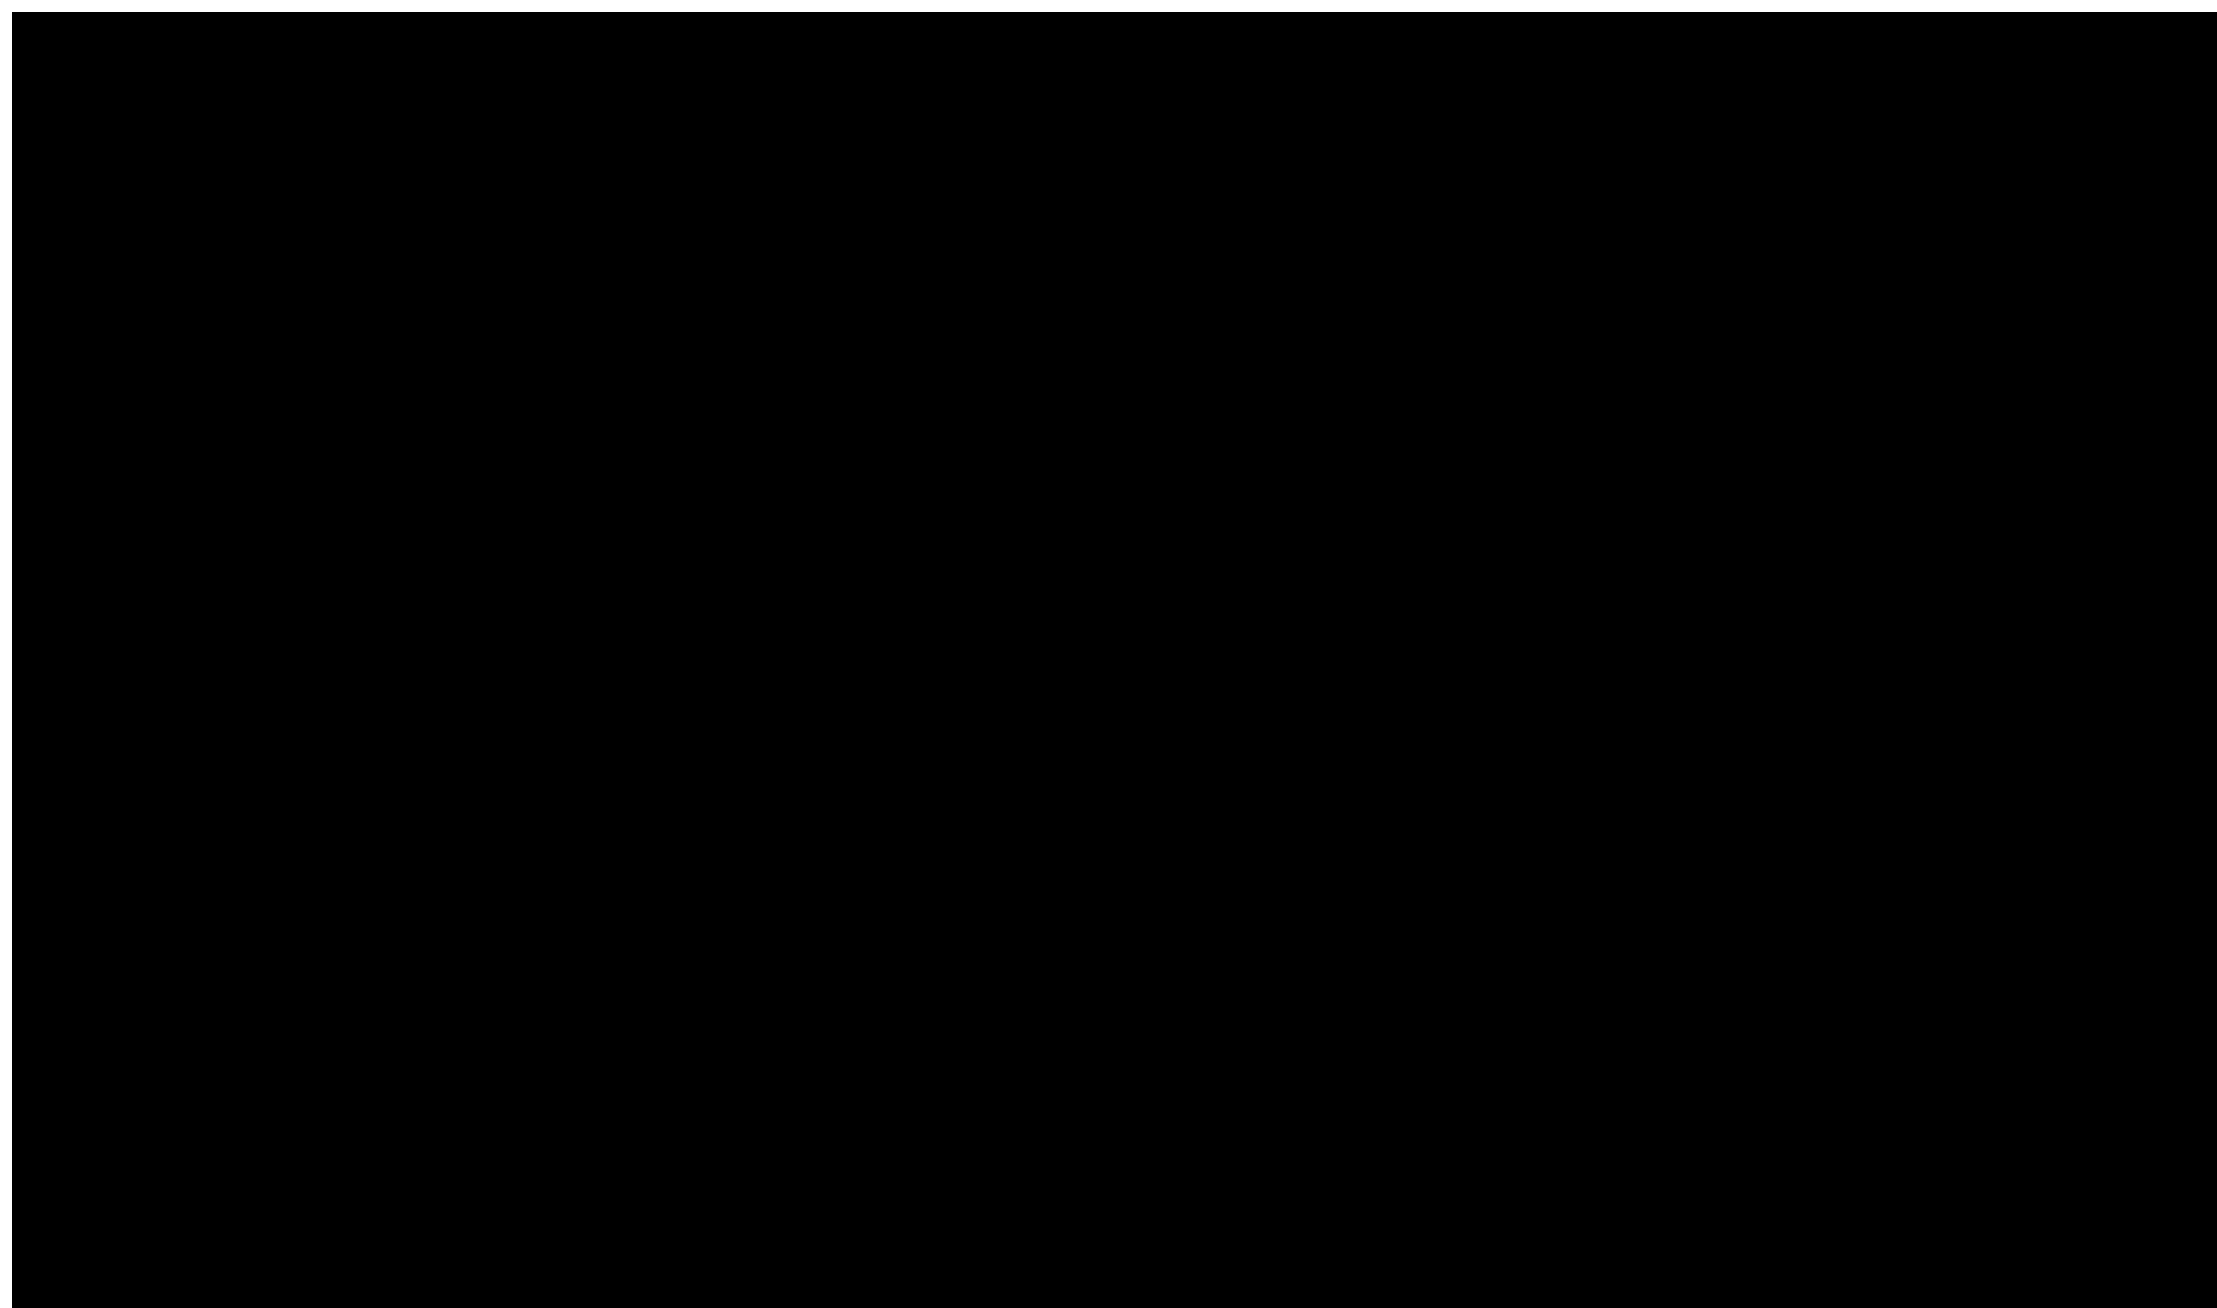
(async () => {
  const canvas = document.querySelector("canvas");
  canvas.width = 2217;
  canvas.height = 1308;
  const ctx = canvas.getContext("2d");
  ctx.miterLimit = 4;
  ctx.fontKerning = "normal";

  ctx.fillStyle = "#ffffff";
  ctx.fillRect(0, 0, 2217, 1308);
  ctx.fillStyle = "#000000";
  ctx.fillRect(12, 12, 2205, 1296);
})();
